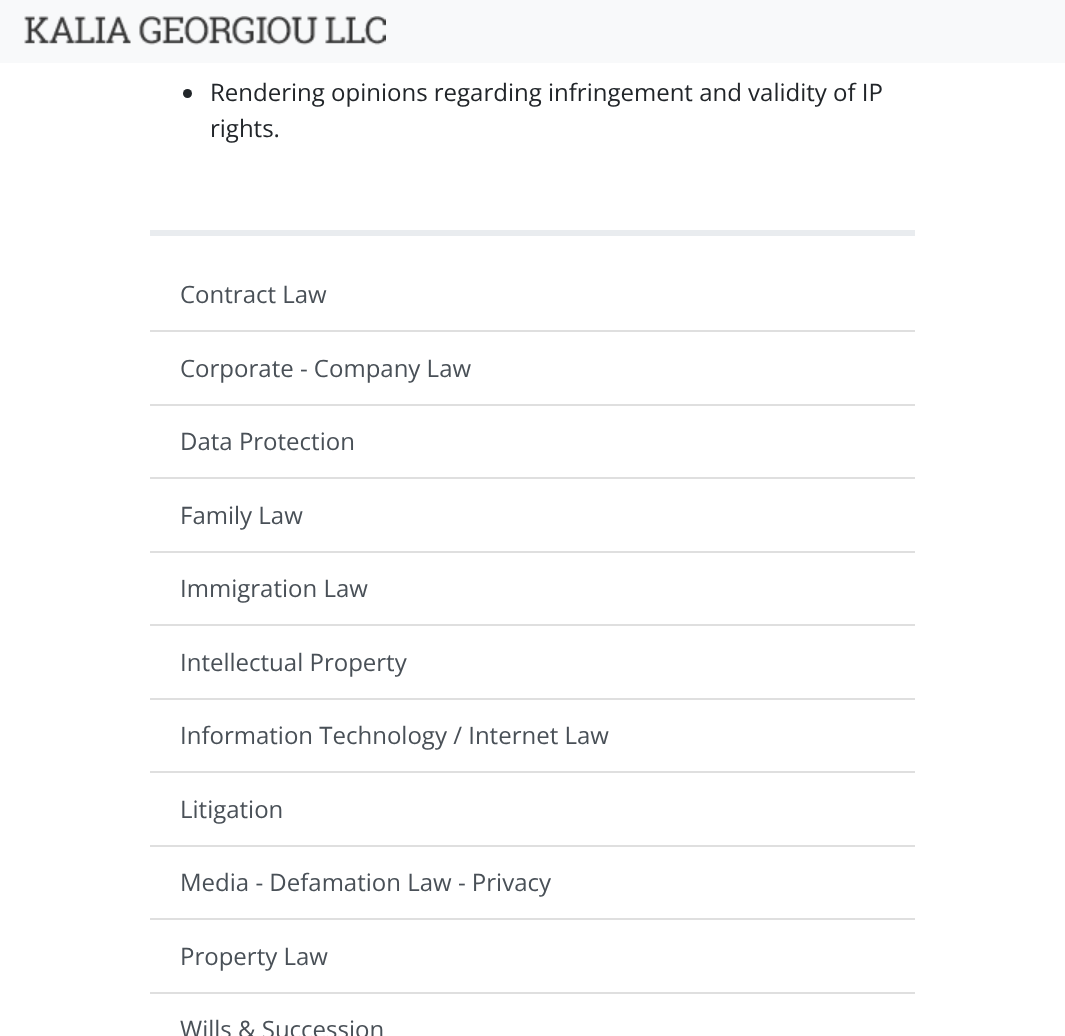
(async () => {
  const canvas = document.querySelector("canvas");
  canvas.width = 1065;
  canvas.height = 1036;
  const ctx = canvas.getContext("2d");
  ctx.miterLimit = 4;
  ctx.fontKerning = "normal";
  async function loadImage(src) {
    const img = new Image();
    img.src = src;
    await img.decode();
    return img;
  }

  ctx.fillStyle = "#ffffff";
  ctx.fillRect(0, 0, 1065, 1036);
  ctx.fillStyle = "#f8f9fa";
  ctx.fillRect(0, 0, 1065, 63);
  ctx.drawImage(await loadImage("img/1.png"), 24, 16, 362, 29);
  ctx.fillStyle = "#212529";
  ctx.beginPath();
  ctx.arc(187.5, 93.5, 4.5, 0, Math.PI * 2);
  ctx.fill();
  for (const [x, y, w, h, color] of [
    [150, 230, 765, 6, "#e9ecef"],
    [150, 330, 765, 2, "#dfdfdf"],
    [150, 404, 765, 2, "#dfdfdf"],
    [150, 477, 765, 2, "#dfdfdf"],
    [150, 551, 765, 2, "#dfdfdf"],
    [150, 624, 765, 2, "#dfdfdf"],
    [150, 698, 765, 2, "#dfdfdf"],
    [150, 771, 765, 2, "#dfdfdf"],
    [150, 845, 765, 2, "#dfdfdf"],
    [150, 918, 765, 2, "#dfdfdf"],
    [150, 992, 765, 2, "#dfdfdf"],
  ]) {
    ctx.fillStyle = color;
    ctx.fillRect(x, y, w, h);
  }
  ctx.font = "24px Open Sans";
  ctx.fillStyle = "#212529";
  ctx.fillText("Rendering opinions regarding infringement and validity of IP", 210, 101);
  ctx.fillText("rights.", 210, 137);
  ctx.fillStyle = "#495057";
  for (const [text, x, y] of [
    ["Contract Law", 180, 303],
    ["Corporate - Company Law", 180, 377],
    ["Data Protection", 180, 450],
    ["Family Law", 180, 524],
    ["Immigration Law", 180, 597],
    ["Intellectual Property", 180, 671],
    ["Information Technology / Internet Law", 180, 744],
    ["Litigation", 180, 818],
    ["Media - Defamation Law - Privacy", 180, 891],
    ["Property Law", 180, 965],
    ["Wills & Succession", 180, 1038],
  ]) {
    ctx.fillText(text, x, y);
  }
})();
